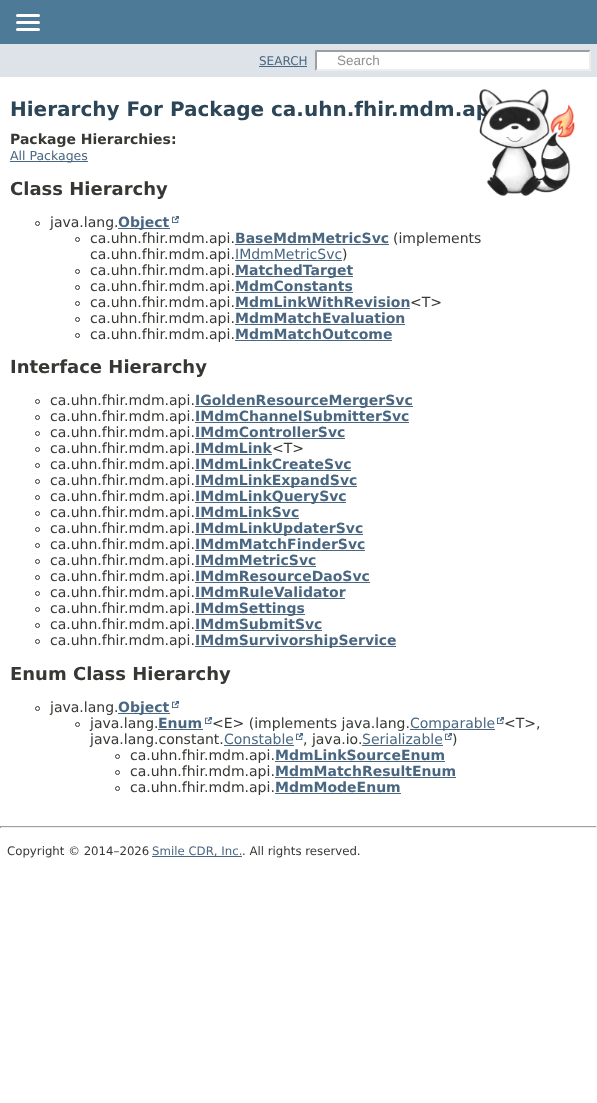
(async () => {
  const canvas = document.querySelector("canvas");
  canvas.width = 597;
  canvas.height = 1103;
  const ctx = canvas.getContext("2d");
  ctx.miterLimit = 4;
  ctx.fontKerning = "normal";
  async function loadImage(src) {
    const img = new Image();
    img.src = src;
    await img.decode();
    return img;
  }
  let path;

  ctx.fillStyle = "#ffffff";
  ctx.fillRect(0, 0, 597, 1103);
  ctx.fillStyle = "#4d7a97";
  ctx.fillRect(0, 0, 597, 44);
  ctx.fillStyle = "#ffffff";
  ctx.beginPath();
  ctx.roundRect(16, 14, 24, 3, 1.5);
  ctx.fill();
  ctx.beginPath();
  ctx.roundRect(16, 21, 24, 3, 1.5);
  ctx.fill();
  ctx.beginPath();
  ctx.roundRect(16, 28, 24, 3, 1.5);
  ctx.fill();
  for (const [x, y, w, h, color] of [
    [0, 44, 597, 33, "#dee3e9"],
    [259, 66, 48, 1, "#4a6782"],
    [315, 50, 276, 21, "#ffffff"],
  ]) {
    ctx.fillStyle = color;
    ctx.fillRect(x, y, w, h);
  }
  ctx.fillStyle = "#9e9e9e";
  path = new Path2D("M315 50H591L589 52H317Z");
  ctx.fill(path);
  ctx.fillStyle = "#ededed";
  path = new Path2D("M591 50V71L589 69V52Z");
  ctx.fill(path);
  path = new Path2D("M591 71H315L317 69H589Z");
  ctx.fill(path);
  ctx.fillStyle = "#9e9e9e";
  path = new Path2D("M315 71V50L317 52V69Z");
  ctx.fill(path);
  ctx.fillStyle = "#4a6782";
  ctx.fillRect(10, 161, 78, 1);
  ctx.beginPath();
  ctx.arc(37.5, 223.5, 2, 0, Math.PI * 2);
  ctx.strokeStyle = "#353833";
  ctx.stroke();
  ctx.fillRect(118, 228, 52, 1);
  ctx.drawImage(await loadImage("img/2.png"), 172, 216, 7, 7);
  ctx.beginPath();
  ctx.arc(77.5, 239.5, 2, 0, Math.PI * 2);
  ctx.stroke();
  ctx.fillRect(235, 244, 154, 1);
  ctx.fillRect(235, 260, 107, 1);
  ctx.beginPath();
  ctx.arc(77.5, 271.5, 2, 0, Math.PI * 2);
  ctx.stroke();
  ctx.fillRect(235, 276, 118, 1);
  ctx.beginPath();
  ctx.arc(77.5, 287.5, 2, 0, Math.PI * 2);
  ctx.stroke();
  ctx.fillRect(235, 292, 118, 1);
  ctx.beginPath();
  ctx.arc(77.5, 303.5, 2, 0, Math.PI * 2);
  ctx.stroke();
  ctx.fillRect(235, 308, 175, 1);
  ctx.beginPath();
  ctx.arc(77.5, 319.5, 2, 0, Math.PI * 2);
  ctx.stroke();
  ctx.fillRect(235, 324, 170, 1);
  ctx.beginPath();
  ctx.arc(77.5, 335.5, 2, 0, Math.PI * 2);
  ctx.stroke();
  ctx.fillRect(235, 340, 157, 1);
  ctx.beginPath();
  ctx.arc(37.5, 401.5, 2, 0, Math.PI * 2);
  ctx.stroke();
  ctx.fillRect(195, 406, 218, 1);
  ctx.beginPath();
  ctx.arc(37.5, 417.5, 2, 0, Math.PI * 2);
  ctx.stroke();
  ctx.fillRect(195, 422, 214, 1);
  ctx.beginPath();
  ctx.arc(37.5, 433.5, 2, 0, Math.PI * 2);
  ctx.stroke();
  ctx.fillRect(195, 438, 150, 1);
  ctx.beginPath();
  ctx.arc(37.5, 449.5, 2, 0, Math.PI * 2);
  ctx.stroke();
  ctx.fillRect(195, 454, 77, 1);
  ctx.beginPath();
  ctx.arc(37.5, 465.5, 2, 0, Math.PI * 2);
  ctx.stroke();
  ctx.fillRect(195, 470, 156, 1);
  ctx.beginPath();
  ctx.arc(37.5, 481.5, 2, 0, Math.PI * 2);
  ctx.stroke();
  ctx.fillRect(195, 486, 162, 1);
  ctx.beginPath();
  ctx.arc(37.5, 497.5, 2, 0, Math.PI * 2);
  ctx.stroke();
  ctx.fillRect(195, 502, 151, 1);
  ctx.beginPath();
  ctx.arc(37.5, 513.5, 2, 0, Math.PI * 2);
  ctx.stroke();
  ctx.fillRect(195, 518, 104, 1);
  ctx.beginPath();
  ctx.arc(37.5, 529.5, 2, 0, Math.PI * 2);
  ctx.stroke();
  ctx.fillRect(195, 534, 168, 1);
  ctx.beginPath();
  ctx.arc(37.5, 545.5, 2, 0, Math.PI * 2);
  ctx.stroke();
  ctx.fillRect(195, 550, 170, 1);
  ctx.beginPath();
  ctx.arc(37.5, 561.5, 2, 0, Math.PI * 2);
  ctx.stroke();
  ctx.fillRect(195, 566, 121, 1);
  ctx.beginPath();
  ctx.arc(37.5, 577.5, 2, 0, Math.PI * 2);
  ctx.stroke();
  ctx.fillRect(195, 582, 175, 1);
  ctx.beginPath();
  ctx.arc(37.5, 593.5, 2, 0, Math.PI * 2);
  ctx.stroke();
  ctx.fillRect(195, 598, 150, 1);
  ctx.beginPath();
  ctx.arc(37.5, 609.5, 2, 0, Math.PI * 2);
  ctx.stroke();
  ctx.fillRect(195, 614, 110, 1);
  ctx.beginPath();
  ctx.arc(37.5, 625.5, 2, 0, Math.PI * 2);
  ctx.stroke();
  ctx.fillRect(195, 630, 127, 1);
  ctx.beginPath();
  ctx.arc(37.5, 641.5, 2, 0, Math.PI * 2);
  ctx.stroke();
  ctx.fillRect(195, 646, 201, 1);
  ctx.beginPath();
  ctx.arc(37.5, 708.5, 2, 0, Math.PI * 2);
  ctx.stroke();
  ctx.fillRect(118, 713, 52, 1);
  ctx.drawImage(await loadImage("img/2.png"), 172, 701, 7, 7);
  ctx.beginPath();
  ctx.arc(77.5, 724.5, 2, 0, Math.PI * 2);
  ctx.stroke();
  ctx.fillRect(158, 729, 45, 1);
  ctx.drawImage(await loadImage("img/2.png"), 205, 717, 7, 7);
  ctx.fillRect(410, 729, 85, 1);
  ctx.drawImage(await loadImage("img/2.png"), 497, 717, 7, 7);
  ctx.fillRect(224, 745, 70, 1);
  ctx.drawImage(await loadImage("img/2.png"), 296, 733, 7, 7);
  ctx.fillRect(362, 745, 81, 1);
  ctx.drawImage(await loadImage("img/2.png"), 445, 733, 7, 7);
  ctx.beginPath();
  ctx.arc(117.5, 756.5, 2, 0, Math.PI * 2);
  ctx.stroke();
  ctx.fillRect(275, 761, 170, 1);
  ctx.beginPath();
  ctx.arc(117.5, 772.5, 2, 0, Math.PI * 2);
  ctx.stroke();
  ctx.fillRect(275, 777, 181, 1);
  ctx.beginPath();
  ctx.arc(117.5, 788.5, 2, 0, Math.PI * 2);
  ctx.stroke();
  for (const [x, y, w, h, color] of [
    [275, 793, 126, 1, "#4a6782"],
    [0, 826, 597, 1, "#9f9f9f"],
    [596, 826, 1, 2, "#eeeeee"],
    [0, 827, 597, 1, "#eeeeee"],
    [0, 826, 1, 2, "#9f9f9f"],
    [152, 856, 90, 1, "#4a6782"],
  ]) {
    ctx.fillStyle = color;
    ctx.fillRect(x, y, w, h);
  }
  ctx.font = "12px DejaVu Sans";
  ctx.fillText("SEARCH", 259, 65);
  ctx.font = "13.5px Liberation Sans";
  ctx.fillStyle = "#909090";
  ctx.fillText("Search", 337, 65);
  ctx.font = "bold 20px DejaVu Sans";
  ctx.fillStyle = "#2c4557";
  ctx.fillText("Hierarchy For Package ca.uhn.fhir.mdm.ap", 10, 116);
  ctx.drawImage(await loadImage("img/1.png"), 479, 89, 96, 108);
  ctx.font = "bold 14px DejaVu Sans";
  ctx.fillStyle = "#353833";
  ctx.fillText("Package Hierarchies:", 10, 144);
  ctx.font = "12.5px DejaVu Sans";
  ctx.fillStyle = "#4a6782";
  ctx.fillText("All Packages", 10, 160);
  ctx.font = "bold 18px DejaVu Sans";
  ctx.fillStyle = "#353833";
  ctx.fillText("Class Hierarchy", 10, 195);
  ctx.font = "14px DejaVu Sans";
  ctx.fillText("java.lang.", 50, 227);
  ctx.font = "bold 14px DejaVu Sans";
  ctx.fillStyle = "#4a6782";
  ctx.fillText("Object", 118, 227);
  ctx.font = "14px DejaVu Sans";
  ctx.fillStyle = "#353833";
  ctx.fillText("ca.uhn.fhir.mdm.api.", 90, 243);
  ctx.font = "bold 14px DejaVu Sans";
  ctx.fillStyle = "#4a6782";
  ctx.fillText("BaseMdmMetricSvc", 235, 243);
  ctx.font = "14px DejaVu Sans";
  ctx.fillStyle = "#353833";
  ctx.fillText("(implements", 393, 243);
  ctx.fillText("ca.uhn.fhir.mdm.api.", 90, 259);
  ctx.fillStyle = "#4a6782";
  ctx.fillText("IMdmMetricSvc", 235, 259);
  ctx.fillStyle = "#353833";
  ctx.fillText(")", 342, 259);
  ctx.fillText("ca.uhn.fhir.mdm.api.", 90, 275);
  ctx.font = "bold 14px DejaVu Sans";
  ctx.fillStyle = "#4a6782";
  ctx.fillText("MatchedTarget", 235, 275);
  ctx.font = "14px DejaVu Sans";
  ctx.fillStyle = "#353833";
  ctx.fillText("ca.uhn.fhir.mdm.api.", 90, 291);
  ctx.font = "bold 14px DejaVu Sans";
  ctx.fillStyle = "#4a6782";
  ctx.fillText("MdmConstants", 235, 291);
  ctx.font = "14px DejaVu Sans";
  ctx.fillStyle = "#353833";
  ctx.fillText("ca.uhn.fhir.mdm.api.", 90, 307);
  ctx.font = "bold 14px DejaVu Sans";
  ctx.fillStyle = "#4a6782";
  ctx.fillText("MdmLinkWithRevision", 235, 307);
  ctx.font = "14px DejaVu Sans";
  ctx.fillStyle = "#353833";
  ctx.fillText("<T>", 410, 307);
  ctx.fillText("ca.uhn.fhir.mdm.api.", 90, 323);
  ctx.font = "bold 14px DejaVu Sans";
  ctx.fillStyle = "#4a6782";
  ctx.fillText("MdmMatchEvaluation", 235, 323);
  ctx.font = "14px DejaVu Sans";
  ctx.fillStyle = "#353833";
  ctx.fillText("ca.uhn.fhir.mdm.api.", 90, 339);
  ctx.font = "bold 14px DejaVu Sans";
  ctx.fillStyle = "#4a6782";
  ctx.fillText("MdmMatchOutcome", 235, 339);
  ctx.font = "bold 18px DejaVu Sans";
  ctx.fillStyle = "#353833";
  ctx.fillText("Interface Hierarchy", 10, 373);
  ctx.font = "14px DejaVu Sans";
  ctx.fillText("ca.uhn.fhir.mdm.api.", 50, 405);
  ctx.font = "bold 14px DejaVu Sans";
  ctx.fillStyle = "#4a6782";
  ctx.fillText("IGoldenResourceMergerSvc", 195, 405);
  ctx.font = "14px DejaVu Sans";
  ctx.fillStyle = "#353833";
  ctx.fillText("ca.uhn.fhir.mdm.api.", 50, 421);
  ctx.font = "bold 14px DejaVu Sans";
  ctx.fillStyle = "#4a6782";
  ctx.fillText("IMdmChannelSubmitterSvc", 195, 421);
  ctx.font = "14px DejaVu Sans";
  ctx.fillStyle = "#353833";
  ctx.fillText("ca.uhn.fhir.mdm.api.", 50, 437);
  ctx.font = "bold 14px DejaVu Sans";
  ctx.fillStyle = "#4a6782";
  ctx.fillText("IMdmControllerSvc", 195, 437);
  ctx.font = "14px DejaVu Sans";
  ctx.fillStyle = "#353833";
  ctx.fillText("ca.uhn.fhir.mdm.api.", 50, 453);
  ctx.font = "bold 14px DejaVu Sans";
  ctx.fillStyle = "#4a6782";
  ctx.fillText("IMdmLink", 195, 453);
  ctx.font = "14px DejaVu Sans";
  ctx.fillStyle = "#353833";
  ctx.fillText("<T>", 272, 453);
  ctx.fillText("ca.uhn.fhir.mdm.api.", 50, 469);
  ctx.font = "bold 14px DejaVu Sans";
  ctx.fillStyle = "#4a6782";
  ctx.fillText("IMdmLinkCreateSvc", 195, 469);
  ctx.font = "14px DejaVu Sans";
  ctx.fillStyle = "#353833";
  ctx.fillText("ca.uhn.fhir.mdm.api.", 50, 485);
  ctx.font = "bold 14px DejaVu Sans";
  ctx.fillStyle = "#4a6782";
  ctx.fillText("IMdmLinkExpandSvc", 195, 485);
  ctx.font = "14px DejaVu Sans";
  ctx.fillStyle = "#353833";
  ctx.fillText("ca.uhn.fhir.mdm.api.", 50, 501);
  ctx.font = "bold 14px DejaVu Sans";
  ctx.fillStyle = "#4a6782";
  ctx.fillText("IMdmLinkQuerySvc", 195, 501);
  ctx.font = "14px DejaVu Sans";
  ctx.fillStyle = "#353833";
  ctx.fillText("ca.uhn.fhir.mdm.api.", 50, 517);
  ctx.font = "bold 14px DejaVu Sans";
  ctx.fillStyle = "#4a6782";
  ctx.fillText("IMdmLinkSvc", 195, 517);
  ctx.font = "14px DejaVu Sans";
  ctx.fillStyle = "#353833";
  ctx.fillText("ca.uhn.fhir.mdm.api.", 50, 533);
  ctx.font = "bold 14px DejaVu Sans";
  ctx.fillStyle = "#4a6782";
  ctx.fillText("IMdmLinkUpdaterSvc", 195, 533);
  ctx.font = "14px DejaVu Sans";
  ctx.fillStyle = "#353833";
  ctx.fillText("ca.uhn.fhir.mdm.api.", 50, 549);
  ctx.font = "bold 14px DejaVu Sans";
  ctx.fillStyle = "#4a6782";
  ctx.fillText("IMdmMatchFinderSvc", 195, 549);
  ctx.font = "14px DejaVu Sans";
  ctx.fillStyle = "#353833";
  ctx.fillText("ca.uhn.fhir.mdm.api.", 50, 565);
  ctx.font = "bold 14px DejaVu Sans";
  ctx.fillStyle = "#4a6782";
  ctx.fillText("IMdmMetricSvc", 195, 565);
  ctx.font = "14px DejaVu Sans";
  ctx.fillStyle = "#353833";
  ctx.fillText("ca.uhn.fhir.mdm.api.", 50, 581);
  ctx.font = "bold 14px DejaVu Sans";
  ctx.fillStyle = "#4a6782";
  ctx.fillText("IMdmResourceDaoSvc", 195, 581);
  ctx.font = "14px DejaVu Sans";
  ctx.fillStyle = "#353833";
  ctx.fillText("ca.uhn.fhir.mdm.api.", 50, 597);
  ctx.font = "bold 14px DejaVu Sans";
  ctx.fillStyle = "#4a6782";
  ctx.fillText("IMdmRuleValidator", 195, 597);
  ctx.font = "14px DejaVu Sans";
  ctx.fillStyle = "#353833";
  ctx.fillText("ca.uhn.fhir.mdm.api.", 50, 613);
  ctx.font = "bold 14px DejaVu Sans";
  ctx.fillStyle = "#4a6782";
  ctx.fillText("IMdmSettings", 195, 613);
  ctx.font = "14px DejaVu Sans";
  ctx.fillStyle = "#353833";
  ctx.fillText("ca.uhn.fhir.mdm.api.", 50, 629);
  ctx.font = "bold 14px DejaVu Sans";
  ctx.fillStyle = "#4a6782";
  ctx.fillText("IMdmSubmitSvc", 195, 629);
  ctx.font = "14px DejaVu Sans";
  ctx.fillStyle = "#353833";
  ctx.fillText("ca.uhn.fhir.mdm.api.", 50, 645);
  ctx.font = "bold 14px DejaVu Sans";
  ctx.fillStyle = "#4a6782";
  ctx.fillText("IMdmSurvivorshipService", 195, 645);
  ctx.font = "bold 18px DejaVu Sans";
  ctx.fillStyle = "#353833";
  ctx.fillText("Enum Class Hierarchy", 10, 680);
  ctx.font = "14px DejaVu Sans";
  ctx.fillText("java.lang.", 50, 712);
  ctx.font = "bold 14px DejaVu Sans";
  ctx.fillStyle = "#4a6782";
  ctx.fillText("Object", 118, 712);
  ctx.font = "14px DejaVu Sans";
  ctx.fillStyle = "#353833";
  ctx.fillText("java.lang.", 90, 728);
  ctx.font = "bold 14px DejaVu Sans";
  ctx.fillStyle = "#4a6782";
  ctx.fillText("Enum", 158, 728);
  ctx.font = "14px DejaVu Sans";
  ctx.fillStyle = "#353833";
  ctx.fillText("<E> (implements java.lang.", 212, 728);
  ctx.fillStyle = "#4a6782";
  ctx.fillText("Comparable", 410, 728);
  ctx.fillStyle = "#353833";
  ctx.fillText("<T>,", 504, 728);
  ctx.fillText("java.lang.constant.", 90, 744);
  ctx.fillStyle = "#4a6782";
  ctx.fillText("Constable", 224, 744);
  ctx.fillStyle = "#353833";
  ctx.fillText(", java.io.", 303, 744);
  ctx.fillStyle = "#4a6782";
  ctx.fillText("Serializable", 362, 744);
  ctx.fillStyle = "#353833";
  ctx.fillText(")", 452, 744);
  ctx.fillText("ca.uhn.fhir.mdm.api.", 130, 760);
  ctx.font = "bold 14px DejaVu Sans";
  ctx.fillStyle = "#4a6782";
  ctx.fillText("MdmLinkSourceEnum", 275, 760);
  ctx.font = "14px DejaVu Sans";
  ctx.fillStyle = "#353833";
  ctx.fillText("ca.uhn.fhir.mdm.api.", 130, 776);
  ctx.font = "bold 14px DejaVu Sans";
  ctx.fillStyle = "#4a6782";
  ctx.fillText("MdmMatchResultEnum", 275, 776);
  ctx.font = "14px DejaVu Sans";
  ctx.fillStyle = "#353833";
  ctx.fillText("ca.uhn.fhir.mdm.api.", 130, 792);
  ctx.font = "bold 14px DejaVu Sans";
  ctx.fillStyle = "#4a6782";
  ctx.fillText("MdmModeEnum", 275, 792);
  ctx.font = "11.75px DejaVu Sans";
  ctx.fillStyle = "#353833";
  ctx.fillText("Copyright © 2014–2026", 7, 855);
  ctx.fillStyle = "#4a6782";
  ctx.fillText("Smile CDR, Inc.", 152, 855);
  ctx.fillStyle = "#353833";
  ctx.fillText(". All rights reserved.", 242, 855);
})();
